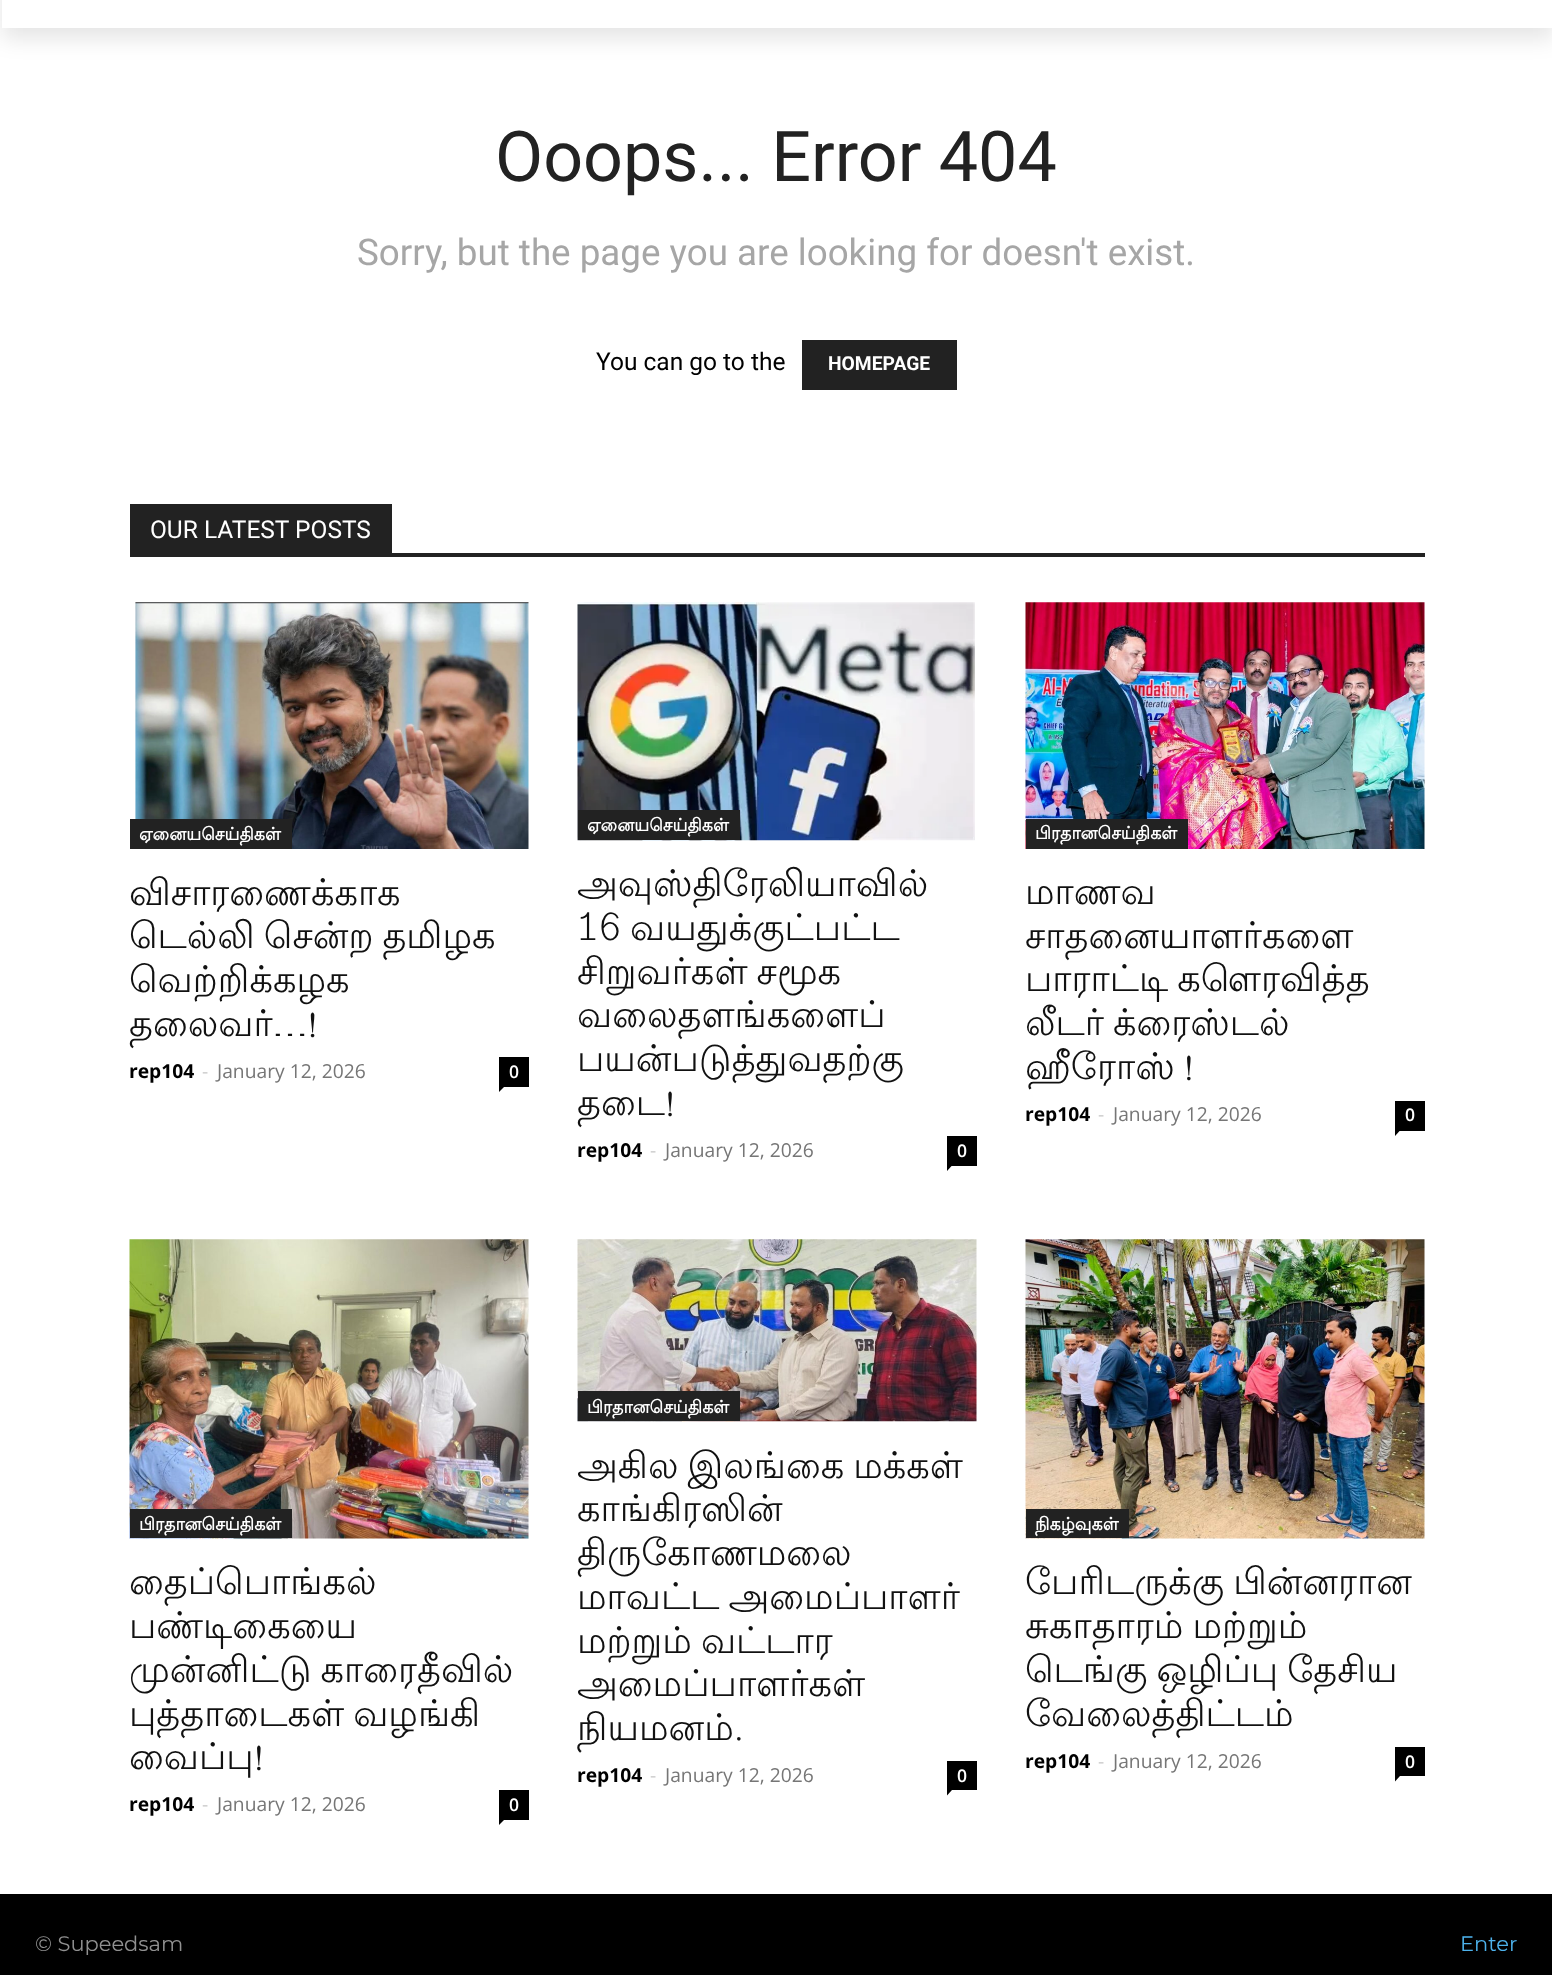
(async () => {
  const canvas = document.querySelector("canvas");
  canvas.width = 1552;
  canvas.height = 1975;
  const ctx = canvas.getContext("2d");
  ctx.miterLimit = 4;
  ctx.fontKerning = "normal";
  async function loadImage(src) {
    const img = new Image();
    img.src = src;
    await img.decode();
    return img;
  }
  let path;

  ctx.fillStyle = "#ffffff";
  ctx.fillRect(0, 0, 1552, 1975);
  ctx.save();
  path = new Path2D("M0 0H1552V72H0ZM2-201H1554V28H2Z");
  ctx.clip(path, "evenodd");
  ctx.fillStyle = "rgba(0, 0, 0, 0.1)";
  ctx.filter = "blur(10.5px)";
  ctx.beginPath();
  ctx.rect(2, -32, 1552, 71);
  ctx.fill();
  ctx.filter = "none";
  ctx.restore();
  for (const [x, y, w, h, color] of [
    [802, 340, 155, 50, "#222222"],
    [130, 553, 1295, 4, "#222222"],
    [130, 504, 262, 49, "#222222"],
  ]) {
    ctx.fillStyle = color;
    ctx.fillRect(x, y, w, h);
  }
  ctx.drawImage(await loadImage("img/1.png"), 135, 602, 394, 247);
  ctx.fillRect(130, 819, 162, 30);
  ctx.fillStyle = "#000000";
  ctx.fillRect(499, 1057, 30, 30);
  path = new Path2D("M499 1087H504L499 1092Z");
  ctx.fill(path);
  ctx.drawImage(await loadImage("img/2.png"), 577, 602, 398, 239);
  ctx.fillStyle = "#222222";
  ctx.fillRect(578, 810, 162, 30);
  ctx.fillStyle = "#000000";
  ctx.fillRect(947, 1136, 30, 30);
  path = new Path2D("M947 1165.5H952L947 1171Z");
  ctx.fill(path);
  ctx.drawImage(await loadImage("img/3.png"), 1025, 602, 400, 247);
  ctx.fillStyle = "#222222";
  ctx.fillRect(1026, 819, 162, 30);
  ctx.fillStyle = "#000000";
  ctx.fillRect(1395, 1101, 30, 30);
  path = new Path2D("M1395 1130.5H1400L1395 1136Z");
  ctx.fill(path);
  ctx.drawImage(await loadImage("img/4.png"), 129, 1239, 400, 300);
  ctx.fillStyle = "#222222";
  ctx.fillRect(130, 1509, 162, 29);
  ctx.fillStyle = "#000000";
  ctx.fillRect(499, 1790, 30, 30);
  path = new Path2D("M499 1820H504L499 1825Z");
  ctx.fill(path);
  ctx.drawImage(await loadImage("img/5.png"), 577, 1239, 400, 183);
  ctx.fillStyle = "#222222";
  ctx.fillRect(578, 1391, 162, 30);
  ctx.fillStyle = "#000000";
  ctx.fillRect(947, 1761, 30, 29);
  path = new Path2D("M947 1790H952L947 1795.5Z");
  ctx.fill(path);
  ctx.drawImage(await loadImage("img/6.png"), 1025, 1239, 400, 300);
  ctx.fillStyle = "#222222";
  ctx.fillRect(1026, 1509, 103, 29);
  ctx.fillStyle = "#000000";
  ctx.fillRect(1395, 1747, 30, 29);
  path = new Path2D("M1395 1776H1400L1395 1781.5Z");
  ctx.fill(path);
  ctx.fillRect(0, 1894, 1552, 81);
  ctx.font = "70px Roboto";
  ctx.fillStyle = "#222222";
  ctx.fillText("Ooops... Error 404", 495, 181);
  ctx.font = "36.75px Roboto";
  ctx.fillStyle = "#a6a6a6";
  ctx.fillText("Sorry, but the page you are looking for doesn't exist.", 357, 265);
  ctx.font = "24.5px Roboto";
  ctx.fillStyle = "#000000";
  ctx.fillText("You can go to the", 596, 370);
  ctx.font = "bold 19.25px Roboto";
  ctx.fillStyle = "#ffffff";
  ctx.fillText("HOMEPAGE", 828, 370);
  ctx.font = "24.5px Roboto";
  ctx.fillText("OUR LATEST POSTS", 150, 538);
  ctx.font = "bold 17.5px Lohit Tamil";
  ctx.fillText("ஏனையசெய்திகள்", 139, 840);
  ctx.font = "36.75px Lohit Tamil";
  ctx.fillStyle = "#111111";
  ctx.fillText("விசாரணைக்காக", 129, 905);
  ctx.wordSpacing = "-2px";
  ctx.fillText("டெல்லி சென்ற தமிழக", 129, 948);
  ctx.wordSpacing = "0px";
  ctx.fillText("வெற்றிக்கழக", 129, 992);
  ctx.fillText("தலைவர்…!", 129, 1036);
  ctx.font = "bold 19.25px Open Sans";
  ctx.fillStyle = "#000000";
  ctx.fillText("rep104", 129, 1078);
  ctx.font = "19.25px Open Sans";
  ctx.fillStyle = "#cccccc";
  ctx.fillText("-", 202, 1078);
  ctx.fillStyle = "#767676";
  ctx.fillText("January 12, 2026", 217, 1078);
  ctx.font = "600 17.5px Open Sans";
  ctx.fillStyle = "#ffffff";
  ctx.fillText("0", 509, 1078);
  ctx.font = "bold 17.5px Lohit Tamil";
  ctx.fillText("ஏனையசெய்திகள்", 587, 831);
  ctx.font = "36.75px Lohit Tamil";
  ctx.fillStyle = "#111111";
  ctx.fillText("அவுஸ்திரேலியாவில்", 577, 896);
  ctx.wordSpacing = "-2px";
  ctx.fillText("16 வயதுக்குட்பட்ட", 577, 940);
  ctx.fillText("சிறுவர்கள் சமூக", 577, 984);
  ctx.wordSpacing = "0px";
  for (const [text, x, y] of [
    ["வலைதளங்களைப்", 577, 1027],
    ["பயன்படுத்துவதற்கு", 577, 1071],
    ["தடை!", 577, 1115],
  ]) {
    ctx.fillText(text, x, y);
  }
  ctx.font = "bold 19.25px Open Sans";
  ctx.fillStyle = "#000000";
  ctx.fillText("rep104", 577, 1157);
  ctx.font = "19.25px Open Sans";
  ctx.fillStyle = "#cccccc";
  ctx.fillText("-", 650, 1157);
  ctx.fillStyle = "#767676";
  ctx.fillText("January 12, 2026", 665, 1157);
  ctx.font = "600 17.5px Open Sans";
  ctx.fillStyle = "#ffffff";
  ctx.fillText("0", 957, 1157);
  ctx.font = "bold 17.5px Lohit Tamil";
  ctx.fillText("பிரதானசெய்திகள்", 1035, 839);
  ctx.font = "36.75px Lohit Tamil";
  ctx.fillStyle = "#111111";
  ctx.fillText("மாணவ", 1025, 904);
  ctx.fillText("சாதனையாளர்களை", 1025, 948);
  ctx.wordSpacing = "-2px";
  for (const [text, x, y] of [
    ["பாராட்டி கௌரவித்த", 1025, 991],
    ["லீடர் க்ரைஸ்டல்", 1025, 1035],
    ["ஹீரோஸ் !", 1025, 1079],
  ]) {
    ctx.fillText(text, x, y);
  }
  ctx.wordSpacing = "0px";
  ctx.font = "bold 19.25px Open Sans";
  ctx.fillStyle = "#000000";
  ctx.fillText("rep104", 1025, 1121);
  ctx.font = "19.25px Open Sans";
  ctx.fillStyle = "#cccccc";
  ctx.fillText("-", 1098, 1121);
  ctx.fillStyle = "#767676";
  ctx.fillText("January 12, 2026", 1113, 1121);
  ctx.font = "600 17.5px Open Sans";
  ctx.fillStyle = "#ffffff";
  ctx.fillText("0", 1405, 1121);
  ctx.font = "bold 17.5px Lohit Tamil";
  ctx.fillText("பிரதானசெய்திகள்", 139, 1530);
  ctx.font = "36.75px Lohit Tamil";
  ctx.fillStyle = "#111111";
  ctx.fillText("தைப்பொங்கல்", 129, 1594);
  ctx.fillText("பண்டிகையை", 129, 1638);
  ctx.wordSpacing = "-2px";
  ctx.fillText("முன்னிட்டு காரைதீவில்", 129, 1682);
  ctx.fillText("புத்தாடைகள் வழங்கி", 129, 1726);
  ctx.wordSpacing = "0px";
  ctx.fillText("வைப்பு!", 129, 1769);
  ctx.font = "bold 19.25px Open Sans";
  ctx.fillStyle = "#000000";
  ctx.fillText("rep104", 129, 1811);
  ctx.font = "19.25px Open Sans";
  ctx.fillStyle = "#cccccc";
  ctx.fillText("-", 202, 1811);
  ctx.fillStyle = "#767676";
  ctx.fillText("January 12, 2026", 217, 1811);
  ctx.font = "600 17.5px Open Sans";
  ctx.fillStyle = "#ffffff";
  ctx.fillText("0", 509, 1811);
  ctx.font = "bold 17.5px Lohit Tamil";
  ctx.fillText("பிரதானசெய்திகள்", 587, 1413);
  ctx.wordSpacing = "-2px";
  ctx.font = "36.75px Lohit Tamil";
  ctx.fillStyle = "#111111";
  ctx.fillText("அகில இலங்கை மக்கள்", 577, 1478);
  ctx.wordSpacing = "0px";
  ctx.fillText("காங்கிரஸின்", 577, 1521);
  ctx.fillText("திருகோணமலை", 577, 1565);
  ctx.wordSpacing = "-2px";
  ctx.fillText("மாவட்ட அமைப்பாளர்", 577, 1609);
  ctx.fillText("மற்றும் வட்டார", 577, 1653);
  ctx.wordSpacing = "0px";
  ctx.fillText("அமைப்பாளர்கள்", 577, 1696);
  ctx.fillText("நியமனம்.", 577, 1740);
  ctx.font = "bold 19.25px Open Sans";
  ctx.fillStyle = "#000000";
  ctx.fillText("rep104", 577, 1782);
  ctx.font = "19.25px Open Sans";
  ctx.fillStyle = "#cccccc";
  ctx.fillText("-", 650, 1782);
  ctx.fillStyle = "#767676";
  ctx.fillText("January 12, 2026", 665, 1782);
  ctx.font = "600 17.5px Open Sans";
  ctx.fillStyle = "#ffffff";
  ctx.fillText("0", 957, 1782);
  ctx.font = "bold 17.5px Lohit Tamil";
  ctx.fillText("நிகழ்வுகள்", 1035, 1530);
  ctx.wordSpacing = "-2px";
  ctx.font = "36.75px Lohit Tamil";
  ctx.fillStyle = "#111111";
  for (const [text, x, y] of [
    ["பேரிடருக்கு பின்னரான", 1025, 1594],
    ["சுகாதாரம் மற்றும்", 1025, 1638],
    ["டெங்கு ஒழிப்பு தேசிய", 1025, 1682],
  ]) {
    ctx.fillText(text, x, y);
  }
  ctx.wordSpacing = "0px";
  ctx.fillText("வேலைத்திட்டம்", 1025, 1726);
  ctx.font = "bold 19.25px Open Sans";
  ctx.fillStyle = "#000000";
  ctx.fillText("rep104", 1025, 1768);
  ctx.font = "19.25px Open Sans";
  ctx.fillStyle = "#cccccc";
  ctx.fillText("-", 1098, 1768);
  ctx.fillStyle = "#767676";
  ctx.fillText("January 12, 2026", 1113, 1768);
  ctx.font = "600 17.5px Open Sans";
  ctx.fillStyle = "#ffffff";
  ctx.fillText("0", 1405, 1768);
  ctx.font = "100 21px Montserrat";
  ctx.fillStyle = "#919191";
  ctx.fillText("© Supeedsam", 35, 1951);
  ctx.fillStyle = "#4db2ec";
  ctx.fillText("Enter", 1460, 1951);
})();
